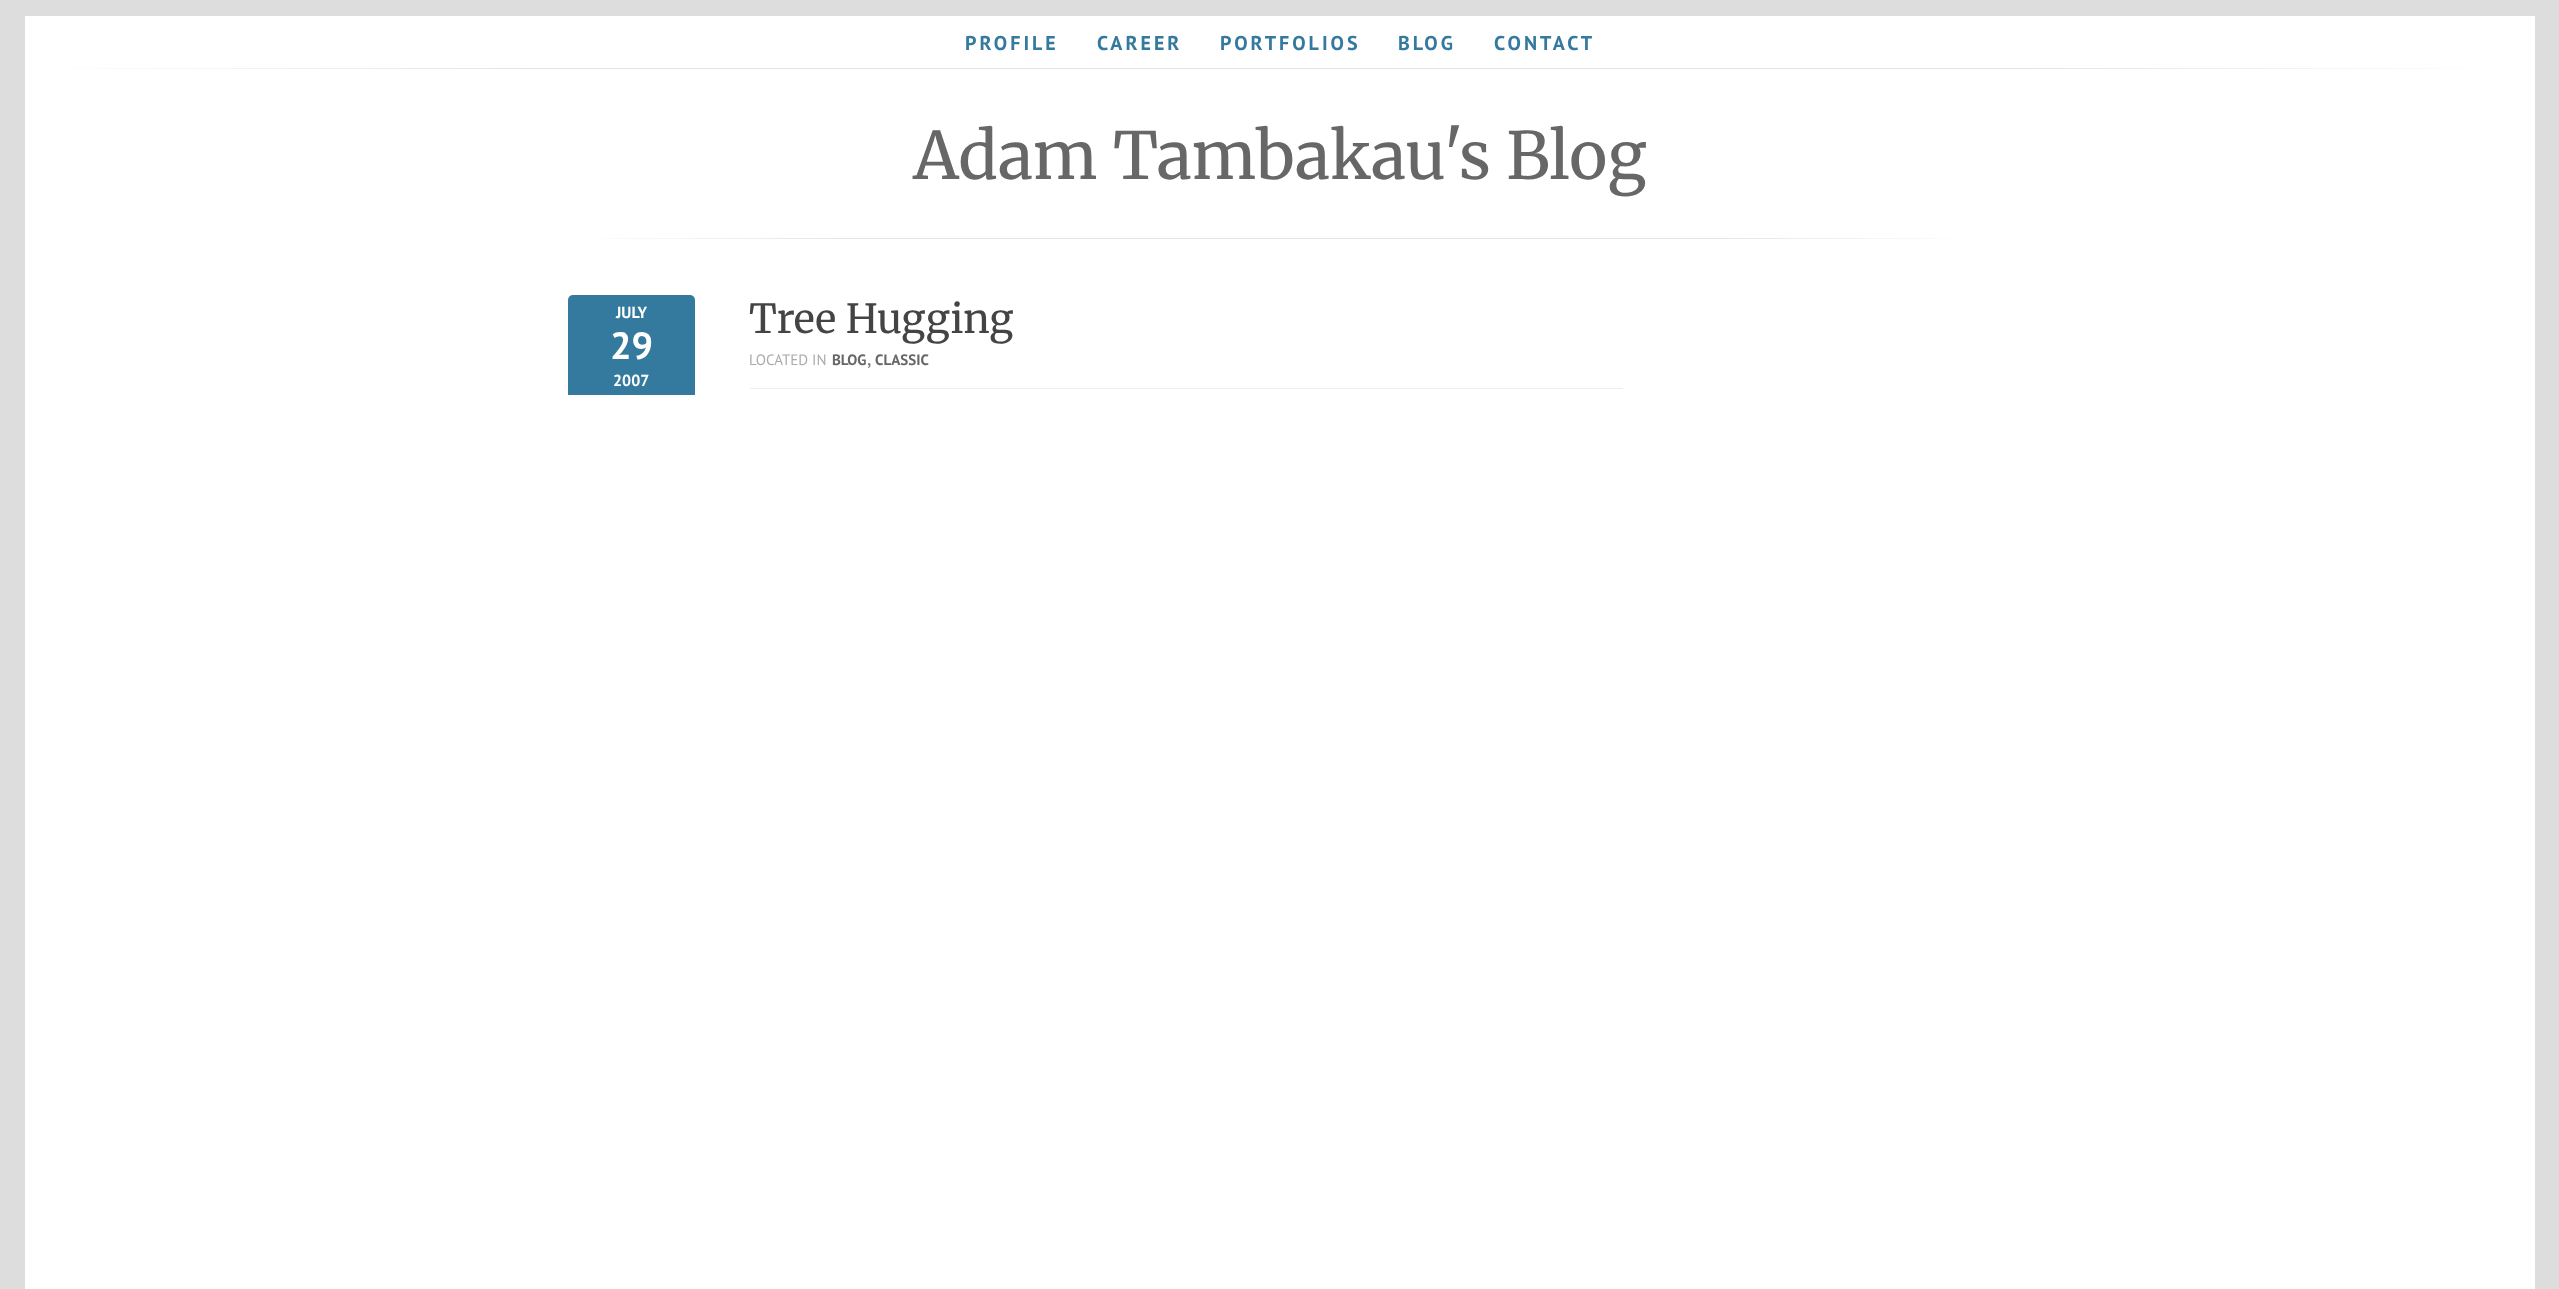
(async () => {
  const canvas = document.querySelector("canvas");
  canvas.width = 2559;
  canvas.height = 1289;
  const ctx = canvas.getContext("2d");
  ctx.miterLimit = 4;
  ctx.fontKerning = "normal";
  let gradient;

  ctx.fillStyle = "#dddddd";
  ctx.fillRect(0, 0, 2559, 1289);
  ctx.fillStyle = "#ffffff";
  ctx.fillRect(25, 16, 2510, 1273);
  gradient = ctx.createLinearGradient(25, 68, 2535, 68);
  gradient.addColorStop(0, "#ffffff");
  gradient.addColorStop(0.2, "#e4e4e4");
  gradient.addColorStop(0.8, "#e4e4e4");
  gradient.addColorStop(0.99, "#ffffff");
  ctx.fillStyle = gradient;
  ctx.fillRect(71, 68, 2395, 1);
  gradient = ctx.createLinearGradient(568, 238, 1993, 238);
  gradient.addColorStop(0, "#ffffff");
  gradient.addColorStop(0.2, "#e4e4e4");
  gradient.addColorStop(0.8, "#e4e4e4");
  gradient.addColorStop(0.99, "#ffffff");
  ctx.fillStyle = gradient;
  ctx.fillRect(594, 238, 1360, 1);
  ctx.fillStyle = "#34799e";
  ctx.beginPath();
  ctx.roundRect(568, 295, 127, 100, [5, 5, 0, 0]);
  ctx.fill();
  ctx.fillStyle = "#eeeeee";
  ctx.fillRect(750, 388, 873, 1);
  ctx.letterSpacing = "3px";
  ctx.font = "bold 20px PT Sans";
  ctx.fillStyle = "#34799e";
  for (const [text, x, y] of [
    ["PROFILE", 965, 50],
    ["CAREER", 1097, 50],
    ["PORTFOLIOS", 1220, 50],
    ["BLOG", 1398, 50],
    ["CONTACT", 1494, 50],
  ]) {
    ctx.fillText(text, x, y);
  }
  ctx.letterSpacing = "0px";
  ctx.font = "65px Merriweather";
  ctx.fillStyle = "#676767";
  ctx.fillText("Adam Tambakau's Blog", 913, 179);
  ctx.font = "bold 16px PT Sans";
  ctx.fillStyle = "#ffffff";
  ctx.fillText("JULY", 616, 318);
  ctx.font = "bold 38px PT Sans";
  ctx.fillText("29", 610, 359);
  ctx.font = "bold 16px PT Sans";
  ctx.fillText("2007", 613, 386);
  ctx.font = "40px Merriweather";
  ctx.fillStyle = "#444444";
  ctx.fillText("Tree Hugging", 749, 333);
  ctx.font = "15px PT Sans";
  ctx.fillStyle = "#aaaaaa";
  ctx.fillText("LOCATED IN", 749, 365);
  ctx.font = "bold 15px PT Sans";
  ctx.fillStyle = "#676767";
  ctx.fillText("BLOG", 832, 365);
  ctx.font = "20px PT Sans";
  ctx.fillStyle = "#777777";
  ctx.fillText(",", 867, 365);
  ctx.font = "bold 15px PT Sans";
  ctx.fillStyle = "#676767";
  ctx.fillText("CLASSIC", 875, 365);
})();
